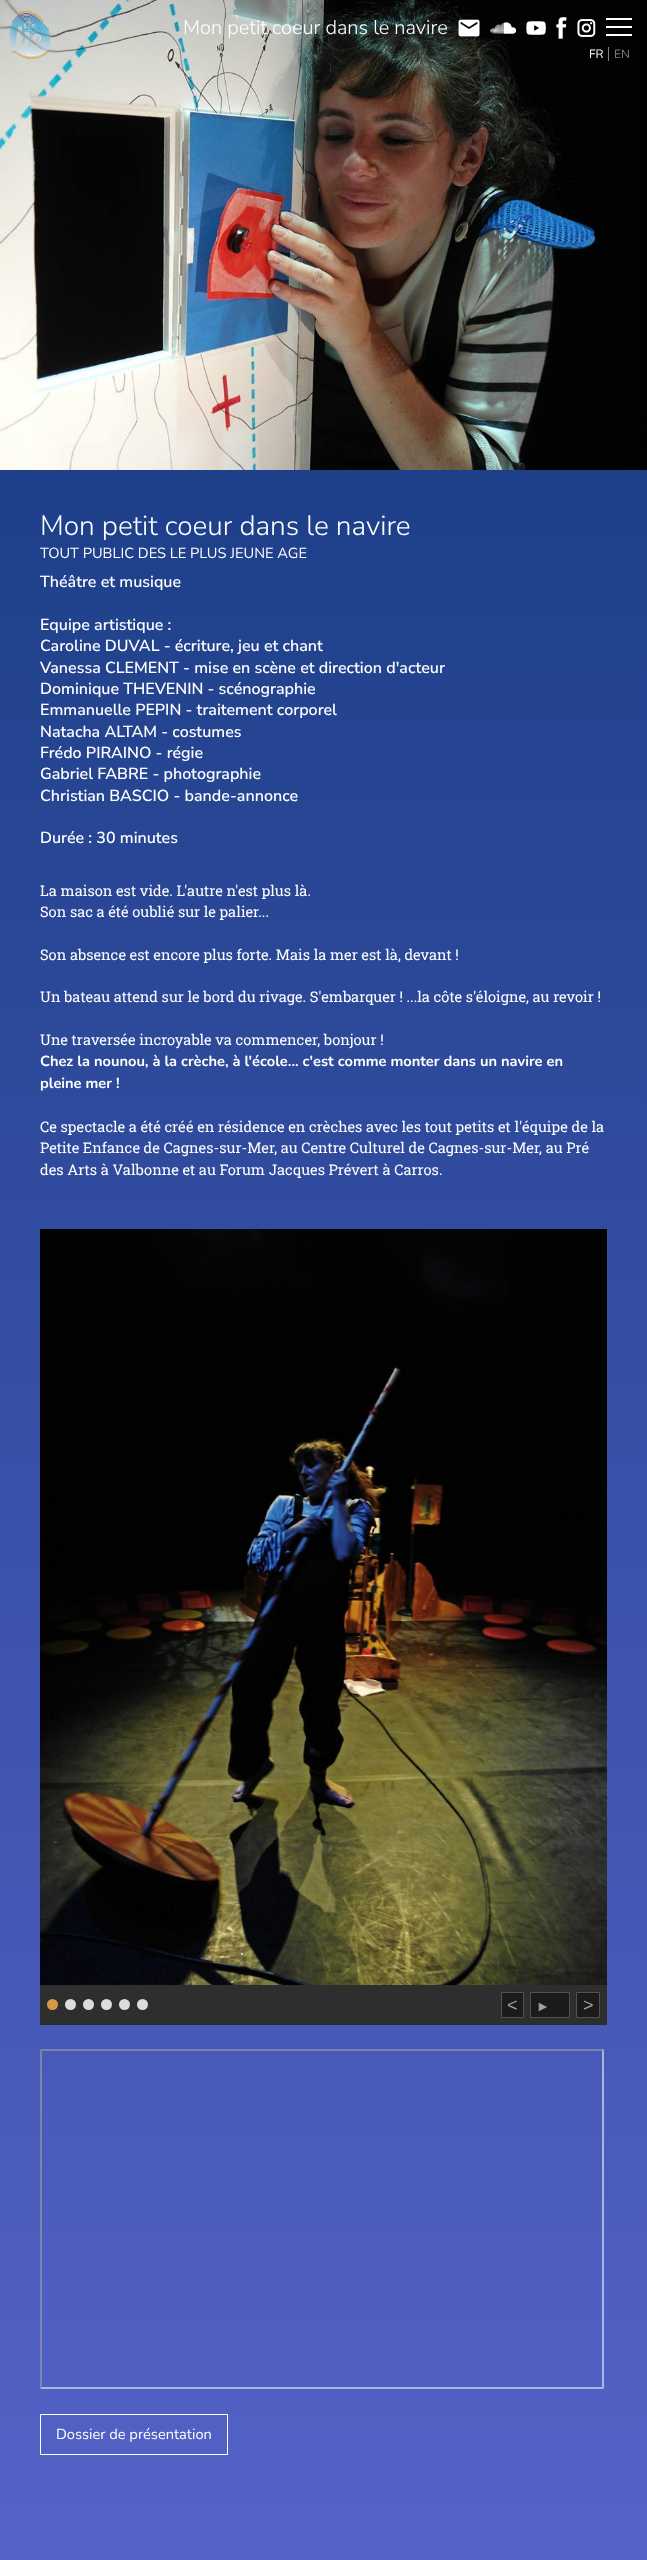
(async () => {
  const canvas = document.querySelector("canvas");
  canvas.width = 647;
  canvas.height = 2560;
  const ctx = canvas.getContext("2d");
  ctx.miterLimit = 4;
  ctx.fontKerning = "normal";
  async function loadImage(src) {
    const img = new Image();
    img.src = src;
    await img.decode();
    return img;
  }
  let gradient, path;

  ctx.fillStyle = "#ffffff";
  ctx.fillRect(0, 0, 647, 2560);
  ctx.drawImage(await loadImage("img/7.png"), 0, 0, 647, 470);
  ctx.drawImage(await loadImage("img/1.png"), 9, 10, 42, 50);
  ctx.drawImage(await loadImage("img/2.png"), 458, 19, 22, 18);
  ctx.drawImage(await loadImage("img/3.png"), 490, 22, 26, 12);
  ctx.drawImage(await loadImage("img/4.png"), 526, 21, 20, 14);
  ctx.drawImage(await loadImage("img/5.png"), 556, 17, 11, 22);
  ctx.drawImage(await loadImage("img/6.png"), 577, 19, 19, 18);
  for (const [x, y, w, h, color] of [
    [606, 18, 26, 2, "#ffffff"],
    [606, 26, 26, 2, "#ffffff"],
    [606, 34, 26, 2, "#ffffff"],
    [608, 47, 1, 14, "#818181"],
  ]) {
    ctx.fillStyle = color;
    ctx.fillRect(x, y, w, h);
  }
  gradient = ctx.createLinearGradient(323, -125, 324, 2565);
  gradient.addColorStop(0, "#0d3677");
  gradient.addColorStop(1, "#5662c8");
  ctx.fillStyle = gradient;
  ctx.fillRect(0, 470, 647, 2090);
  ctx.drawImage(await loadImage("img/8.png"), 40, 1229, 567, 756);
  ctx.fillStyle = "#2e2e2e";
  ctx.fillRect(40, 1985, 567, 40);
  ctx.fillStyle = "#d69746";
  ctx.beginPath();
  ctx.arc(52.5, 2004.5, 5.5, 0, Math.PI * 2);
  ctx.fill();
  ctx.fillStyle = "#dddddd";
  ctx.beginPath();
  ctx.arc(70.5, 2004.5, 5.5, 0, Math.PI * 2);
  ctx.fill();
  ctx.beginPath();
  ctx.arc(88.5, 2004.5, 5.5, 0, Math.PI * 2);
  ctx.fill();
  ctx.beginPath();
  ctx.arc(106.5, 2004.5, 5.5, 0, Math.PI * 2);
  ctx.fill();
  ctx.beginPath();
  ctx.arc(124.5, 2004.5, 5.5, 0, Math.PI * 2);
  ctx.fill();
  ctx.beginPath();
  ctx.arc(142.5, 2004.5, 5.5, 0, Math.PI * 2);
  ctx.fill();
  ctx.fillStyle = "#1b1b1b";
  ctx.beginPath();
  ctx.rect(501.5, 1992.5, 22, 25);
  ctx.fill();
  ctx.strokeStyle = "#525252";
  ctx.stroke();
  ctx.beginPath();
  ctx.rect(530.5, 1992.5, 39, 25);
  ctx.fill();
  ctx.stroke();
  ctx.beginPath();
  ctx.rect(576.5, 1992.5, 23, 25);
  ctx.fill();
  ctx.stroke();
  ctx.fillStyle = "#7c83a9";
  path = new Path2D("M40 2049H604L602 2051H42Z");
  ctx.fill(path);
  ctx.fillStyle = "rgba(238, 238, 238, 0.6)";
  path = new Path2D("M604 2049V2389L602 2387V2051Z");
  ctx.fill(path);
  ctx.fillStyle = "#afb5dd";
  path = new Path2D("M604 2389H40L42 2387H602Z");
  ctx.fill(path);
  ctx.fillStyle = "rgba(159, 159, 159, 0.6)";
  path = new Path2D("M40 2389V2049L42 2051V2387Z");
  ctx.fill(path);
  ctx.strokeStyle = "#ffffff";
  ctx.strokeRect(40.5, 2414.5, 187, 40);
  ctx.font = "300 20px Nunito Sans";
  ctx.fillStyle = "#ffffff";
  ctx.fillText("Mon petit coeur dans le navire", 183, 34);
  ctx.font = "12px Nunito";
  ctx.fillText("FR", 589, 58);
  ctx.fillStyle = "#808080";
  ctx.fillText("EN", 614, 58);
  ctx.font = "300 28px Nunito Sans";
  ctx.fillStyle = "#ffffff";
  ctx.fillText("Mon petit coeur dans le navire", 40, 535);
  ctx.font = "14.65px Nunito Sans";
  ctx.fillText("TOUT PUBLIC DES LE PLUS JEUNE AGE", 40, 558);
  ctx.font = "600 16px Nunito Sans";
  for (const [text, x, y] of [
    ["Théâtre et musique", 40, 587],
    ["Equipe artistique :", 40, 630],
    ["Caroline DUVAL - écriture, jeu et chant", 40, 651],
    ["Vanessa CLEMENT - mise en scène et direction d'acteur", 40, 673],
    ["Dominique THEVENIN - scénographie", 40, 694],
    ["Emmanuelle PEPIN - traitement corporel", 40, 715],
    ["Natacha ALTAM - costumes", 40, 737],
    ["Frédo PIRAINO - régie", 40, 758],
    ["Gabriel FABRE - photographie", 40, 779],
    ["Christian BASCIO - bande-annonce", 40, 801],
    ["Durée : 30 minutes", 40, 843],
  ]) {
    ctx.fillText(text, x, y);
  }
  ctx.font = "14.65px Roboto Slab";
  for (const [text, x, y] of [
    ["La maison est vide. L'autre n'est plus là.", 40, 896],
    ["Son sac a été oublié sur le palier...", 40, 917],
    ["Son absence est encore plus forte. Mais la mer est là, devant !", 40, 960],
    ["Un bateau attend sur le bord du rivage. S'embarquer ! ...la côte s'éloigne, au revoir !", 40, 1002],
    ["Une traversée incroyable va commencer, bonjour !", 40, 1045],
  ]) {
    ctx.fillText(text, x, y);
  }
  ctx.font = "bold 14.65px Nunito";
  ctx.fillText("Chez la nounou, à la crèche, à l'école... c'est comme monter dans un navire en", 40, 1066);
  ctx.fillText("pleine mer !", 40, 1088);
  ctx.font = "14.65px Roboto Slab";
  for (const [text, x, y] of [
    ["Ce spectacle a été créé en résidence en crèches avec les tout petits et l'équipe de la", 40, 1132],
    ["Petite Enfance de Cagnes-sur-Mer, au Centre Culturel de Cagnes-sur-Mer, au Pré", 40, 1153],
    ["des Arts à Valbonne et au Forum Jacques Prévert à Carros.", 40, 1175],
  ]) {
    ctx.fillText(text, x, y);
  }
  ctx.font = "18px Liberation Sans";
  ctx.fillStyle = "#a0a0a0";
  ctx.fillText("<", 507, 2011);
  ctx.font = "14px Liberation Sans";
  ctx.fillText("►", 536, 2011);
  ctx.font = "18px Liberation Sans";
  ctx.fillText(">", 583, 2011);
  ctx.font = "14.65px Nunito Sans";
  ctx.fillStyle = "#ffffff";
  ctx.fillText("Dossier de présentation", 56, 2439);
})();
